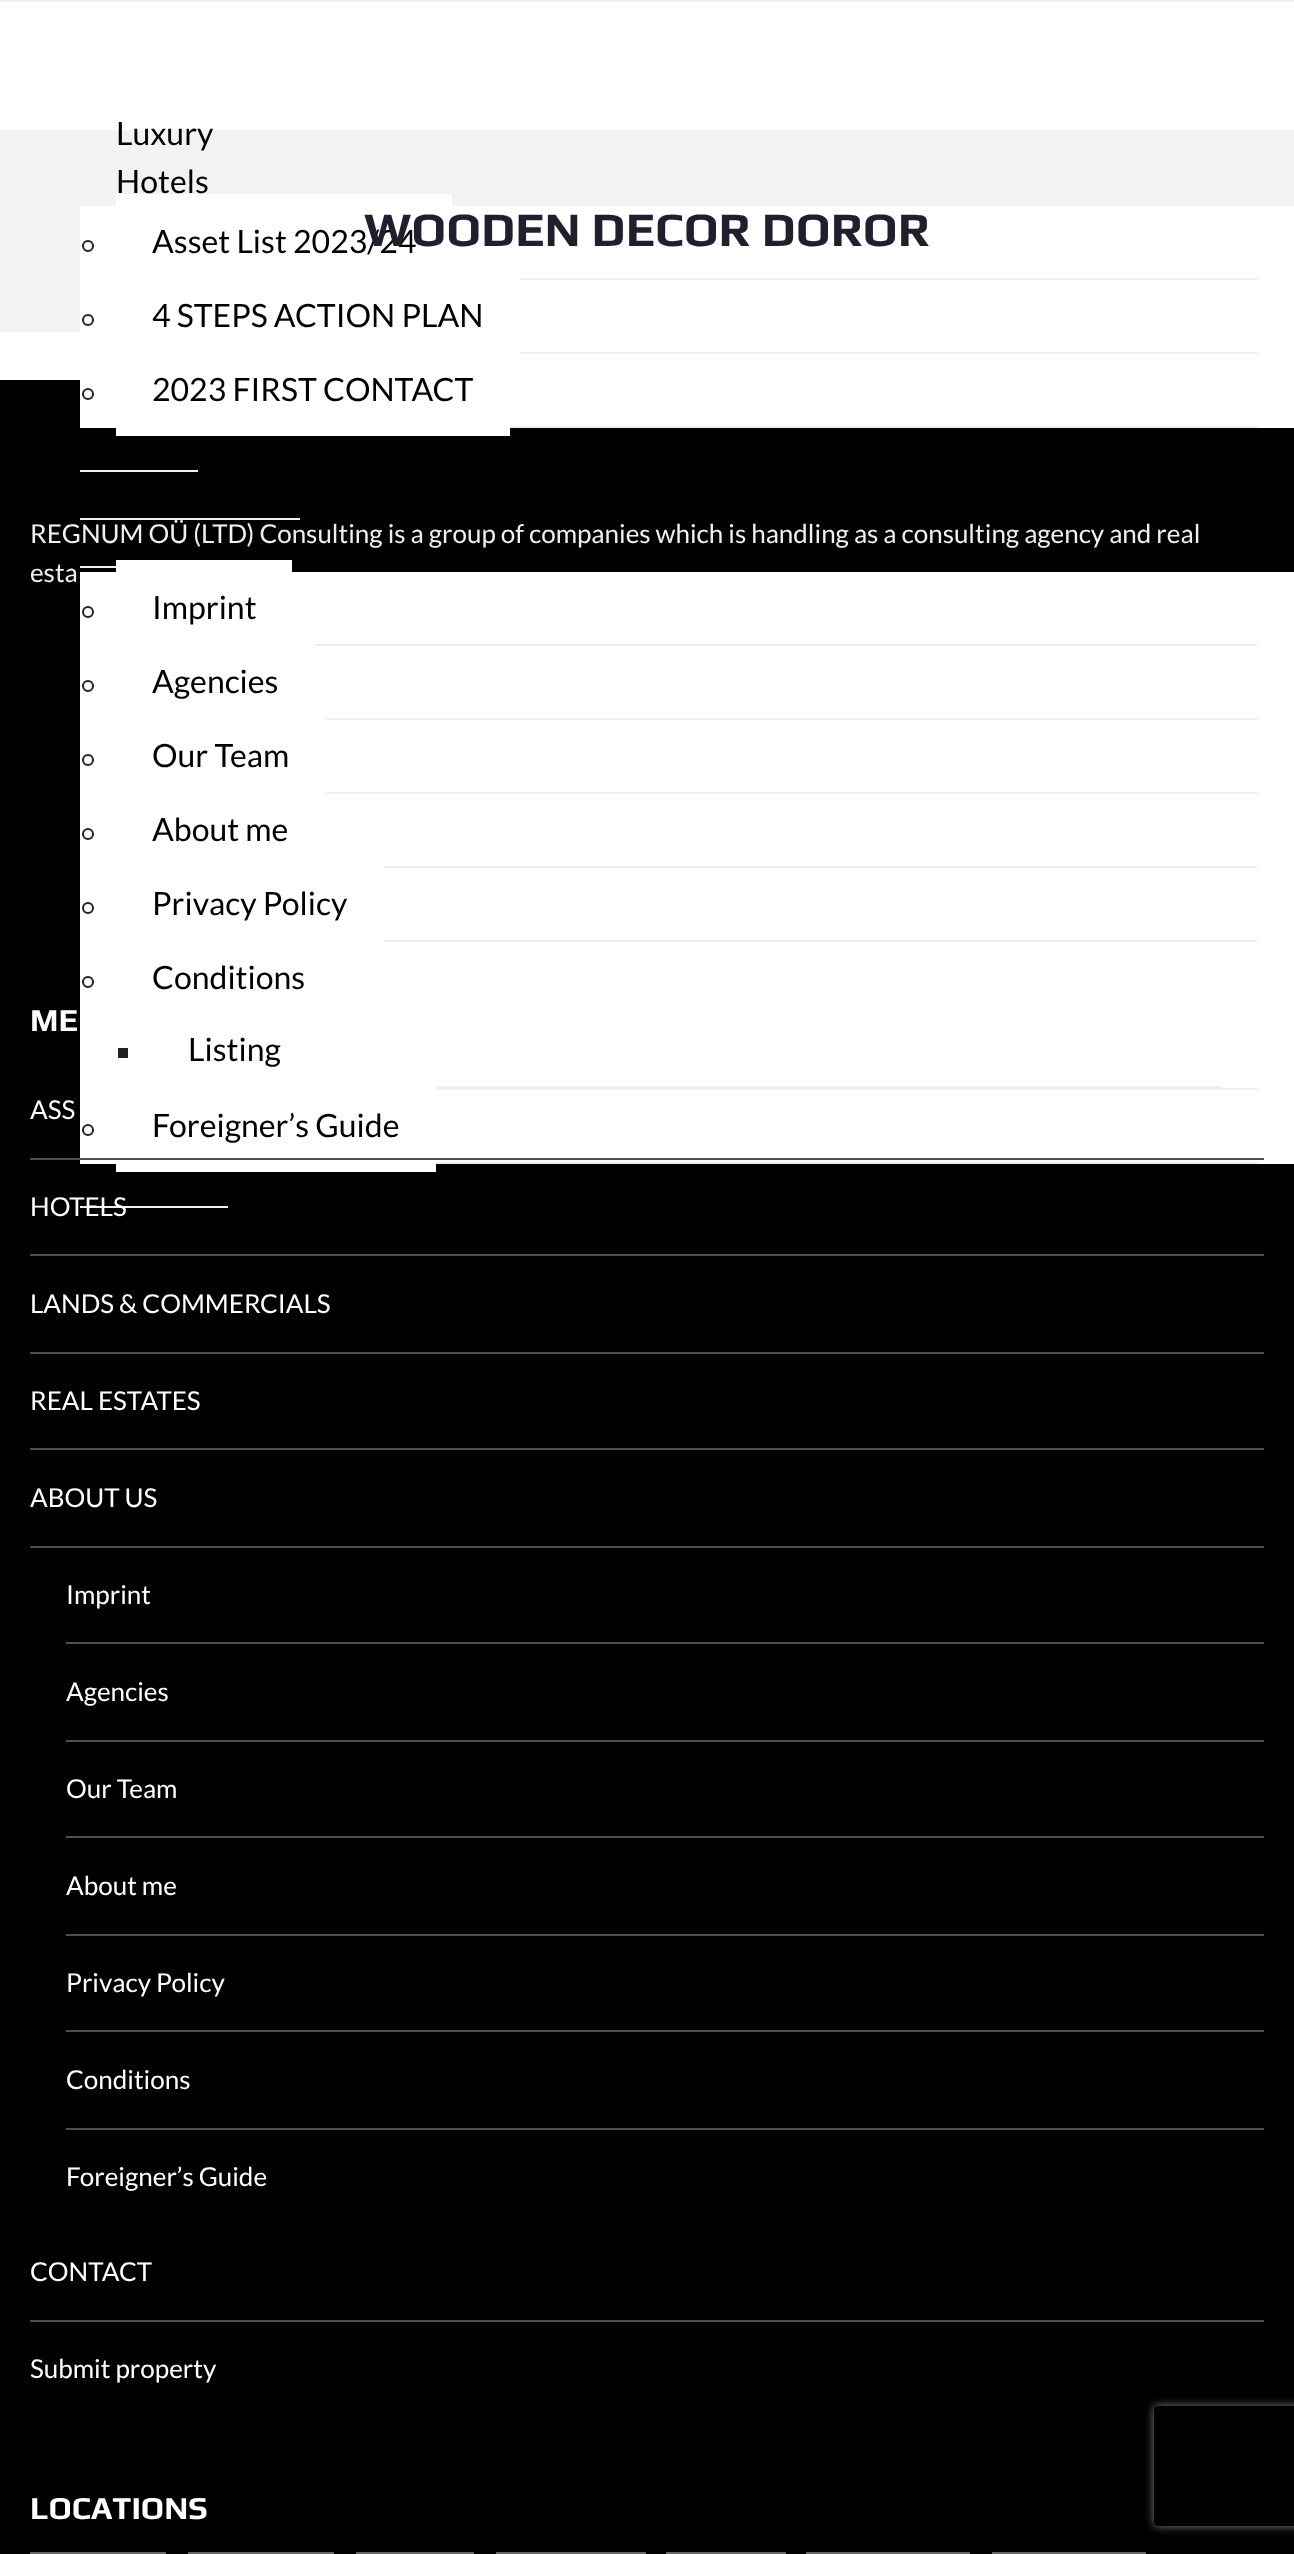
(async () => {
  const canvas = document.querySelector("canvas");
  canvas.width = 1294;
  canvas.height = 2554;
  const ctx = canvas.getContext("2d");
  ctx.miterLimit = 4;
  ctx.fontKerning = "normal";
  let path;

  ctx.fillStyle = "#ffffff";
  ctx.fillRect(0, 0, 1294, 2554);
  for (const [x, y, w, h, color] of [
    [0, 0, 1294, 2, "#f0f0f0"],
    [0, 130, 1294, 202, "#f2f2f2"],
    [0, 380, 1294, 2174, "#000000"],
    [80, 206, 1214, 222, "#ffffff"],
    [520, 278, 738, 2, "#f0f0f0"],
  ]) {
    ctx.fillStyle = color;
    ctx.fillRect(x, y, w, h);
  }
  ctx.beginPath();
  ctx.arc(88, 246, 5, 0, Math.PI * 2);
  ctx.strokeStyle = "#222222";
  ctx.lineWidth = 2;
  ctx.stroke();
  ctx.fillStyle = "#ffffff";
  ctx.fillRect(116, 194, 336, 12);
  ctx.fillStyle = "#f0f0f0";
  ctx.fillRect(520, 352, 738, 2);
  ctx.beginPath();
  ctx.arc(88, 320, 5, 0, Math.PI * 2);
  ctx.stroke();
  ctx.fillRect(510, 426, 748, 2);
  ctx.beginPath();
  ctx.arc(88, 394, 5, 0, Math.PI * 2);
  ctx.stroke();
  for (const [x, y, w, h, color] of [
    [116, 428, 394, 8, "#ffffff"],
    [80, 470, 118, 2, "#f0f0f0"],
    [80, 518, 220, 2, "#f0f0f0"],
    [80, 566, 36, 2, "#f0f0f0"],
    [80, 572, 1214, 592, "#ffffff"],
    [314, 644, 944, 2, "#f0f0f0"],
  ]) {
    ctx.fillStyle = color;
    ctx.fillRect(x, y, w, h);
  }
  ctx.beginPath();
  ctx.arc(88, 612, 5, 0, Math.PI * 2);
  ctx.stroke();
  ctx.fillStyle = "#ffffff";
  ctx.fillRect(116, 560, 176, 12);
  ctx.fillStyle = "#f0f0f0";
  ctx.fillRect(326, 718, 932, 2);
  ctx.beginPath();
  ctx.arc(88, 686, 5, 0, Math.PI * 2);
  ctx.stroke();
  ctx.fillRect(326, 792, 932, 2);
  ctx.beginPath();
  ctx.arc(88, 760, 5, 0, Math.PI * 2);
  ctx.stroke();
  ctx.fillRect(384, 866, 874, 2);
  ctx.beginPath();
  ctx.arc(88, 834, 5, 0, Math.PI * 2);
  ctx.stroke();
  ctx.fillRect(384, 940, 874, 2);
  ctx.beginPath();
  ctx.arc(88, 908, 5, 0, Math.PI * 2);
  ctx.stroke();
  ctx.fillRect(436, 1088, 822, 2);
  ctx.beginPath();
  ctx.arc(88, 982, 5, 0, Math.PI * 2);
  ctx.stroke();
  for (const [x, y, w, h, color] of [
    [436, 1086, 786, 2, "#f0f0f0"],
    [118, 1048, 10, 10, "#222222"],
    [436, 1162, 822, 2, "#f0f0f0"],
  ]) {
    ctx.fillStyle = color;
    ctx.fillRect(x, y, w, h);
  }
  ctx.beginPath();
  ctx.arc(88, 1130, 5, 0, Math.PI * 2);
  ctx.stroke();
  for (const [x, y, w, h, color] of [
    [116, 1164, 320, 8, "#ffffff"],
    [80, 1206, 148, 2, "#f0f0f0"],
    [30, 1158, 1234, 2, "#4d4d4d"],
    [30, 1254, 1234, 2, "#4d4d4d"],
    [30, 1352, 1234, 2, "#4d4d4d"],
    [30, 1448, 1234, 2, "#4d4d4d"],
    [30, 1546, 1234, 2, "#4d4d4d"],
    [66, 1642, 1198, 2, "#4d4d4d"],
    [66, 1740, 1198, 2, "#4d4d4d"],
    [66, 1836, 1198, 2, "#4d4d4d"],
    [66, 1934, 1198, 2, "#4d4d4d"],
    [66, 2030, 1198, 2, "#4d4d4d"],
    [66, 2128, 1198, 2, "#4d4d4d"],
    [30, 2320, 1234, 2, "#4d4d4d"],
  ]) {
    ctx.fillStyle = color;
    ctx.fillRect(x, y, w, h);
  }
  ctx.strokeStyle = "#666666";
  ctx.strokeRect(31, 2553, 134, 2);
  ctx.strokeRect(189, 2553, 144, 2);
  ctx.strokeRect(357, 2553, 116, 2);
  ctx.strokeRect(497, 2553, 148, 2);
  ctx.strokeRect(667, 2553, 118, 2);
  ctx.strokeRect(807, 2553, 162, 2);
  ctx.strokeRect(993, 2553, 152, 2);
  ctx.save();
  path = new Path2D("M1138 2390H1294V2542H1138ZM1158 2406H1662C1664 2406 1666 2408 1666 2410V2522C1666 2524 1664 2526 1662 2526H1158C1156 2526 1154 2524 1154 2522V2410C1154 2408 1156 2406 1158 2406Z");
  ctx.clip(path, "evenodd");
  ctx.fillStyle = "#808080";
  ctx.filter = "blur(5px)";
  ctx.beginPath();
  ctx.roundRect(1154, 2406, 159, 120, 4);
  ctx.fill();
  ctx.filter = "none";
  ctx.restore();
  ctx.font = "32px Lato";
  ctx.fillStyle = "#000000";
  for (const [text, x, y] of [
    ["Luxury", 116, 145],
    ["Hotels", 116, 193],
    ["Asset List 2023/24", 152, 253],
    ["4 STEPS ACTION PLAN", 152, 327],
    ["2023 FIRST CONTACT", 152, 401],
    ["Imprint", 152, 619],
    ["Agencies", 152, 693],
    ["Our Team", 152, 767],
    ["About me", 152, 841],
    ["Privacy Policy", 152, 915],
    ["Conditions", 152, 989],
    ["Listing", 188, 1061],
    ["Foreigner’s Guide", 152, 1137],
  ]) {
    ctx.fillText(text, x, y);
  }
  ctx.font = "bold 48px Play";
  ctx.fillStyle = "#231e2e";
  ctx.fillText("WOODEN DECOR DOROR", 364, 246);
  ctx.font = "26px Lato";
  ctx.fillStyle = "#f0f0f0";
  ctx.fillText("REGNUM OÜ (LTD) Consulting is a group of companies which is handling as a consulting agency and real", 30, 543);
  ctx.fillText("esta", 30, 582);
  ctx.font = "bold 32px Play";
  ctx.fillStyle = "#ffffff";
  ctx.fillText("ME", 30, 1031);
  ctx.font = "26px Lato";
  for (const [text, x, y] of [
    ["ASS", 30, 1119],
    ["HOTELS", 30, 1216],
    ["LANDS & COMMERCIALS", 30, 1313],
    ["REAL ESTATES", 30, 1410],
    ["ABOUT US", 30, 1507],
    ["Imprint", 66, 1604],
    ["Agencies", 66, 1701],
    ["Our Team", 66, 1798],
    ["About me", 66, 1895],
    ["Privacy Policy", 66, 1992],
    ["Conditions", 66, 2089],
    ["Foreigner’s Guide", 66, 2186],
    ["CONTACT", 30, 2281],
    ["Submit property", 30, 2378],
  ]) {
    ctx.fillText(text, x, y);
  }
  ctx.font = "bold 32px Play";
  ctx.fillText("LOCATIONS", 30, 2519);
})();
